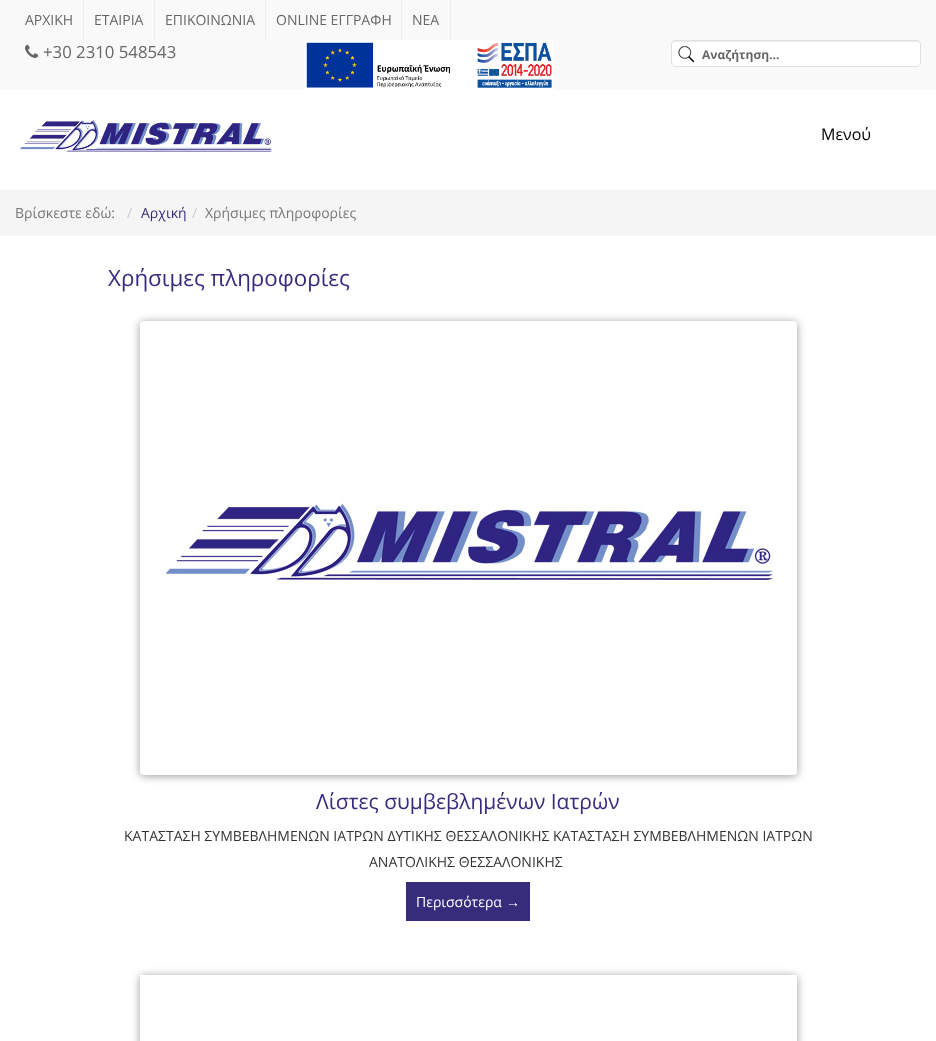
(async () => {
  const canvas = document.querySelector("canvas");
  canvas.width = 936;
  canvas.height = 1041;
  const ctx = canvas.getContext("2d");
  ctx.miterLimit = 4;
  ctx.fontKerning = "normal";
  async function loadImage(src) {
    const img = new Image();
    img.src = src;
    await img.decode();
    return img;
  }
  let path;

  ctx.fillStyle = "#ffffff";
  ctx.fillRect(0, 0, 936, 1041);
  for (const [x, y, w, h, color] of [
    [0, 189, 936, 1, "#f9f9f9"],
    [0, 0, 936, 90, "#f9f9f9"],
    [83, 0, 1, 40, "#ececec"],
    [154, 0, 1, 40, "#ececec"],
    [265, 0, 1, 40, "#ececec"],
    [401, 0, 1, 40, "#ececec"],
    [450, 0, 1, 40, "#ececec"],
  ]) {
    ctx.fillStyle = color;
    ctx.fillRect(x, y, w, h);
  }
  ctx.drawImage(await loadImage("img/1.png"), 25, 44, 14, 14);
  ctx.drawImage(await loadImage("img/2.png"), 304, 40, 250, 50);
  ctx.fillStyle = "#ffffff";
  ctx.beginPath();
  ctx.roundRect(671, 40, 250, 27, 4);
  ctx.fill();
  ctx.fillStyle = "#ececec";
  path = new Path2D("M675 42H917C919 42 920 43 920 45C920 43 919 41 917 41H675C673 41 672 43 672 45C672 43 673 42 675 42Z");
  ctx.fill(path);
  ctx.beginPath();
  ctx.roundRect(671.5, 40.5, 249, 26, 3.5);
  ctx.strokeStyle = "#e0e0e0";
  ctx.stroke();
  ctx.drawImage(await loadImage("img/3.png"), 678, 46, 17, 17);
  ctx.drawImage(await loadImage("img/4.png"), 19, 118, 254, 36);
  ctx.fillStyle = "#f5f5f5";
  ctx.fillRect(0, 190, 936, 46);
  ctx.fillStyle = "rgba(0, 0, 0, 0.4)";
  ctx.filter = "blur(4px)";
  ctx.beginPath();
  ctx.roundRect(140, 322, 657, 454, 4);
  ctx.fill();
  ctx.filter = "none";
  ctx.drawImage(await loadImage("img/5.png"), 140, 321, 657, 454);
  ctx.fillStyle = "#372c7c";
  ctx.fillRect(406, 882, 124, 39);
  ctx.save();
  path = new Path2D("M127 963H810V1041H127ZM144 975H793C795 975 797 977 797 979V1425C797 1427 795 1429 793 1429H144C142 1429 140 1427 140 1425V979C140 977 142 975 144 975Z");
  ctx.clip(path, "evenodd");
  ctx.fillStyle = "rgba(0, 0, 0, 0.4)";
  ctx.filter = "blur(4px)";
  ctx.beginPath();
  ctx.roundRect(140, 976, 657, 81, 4);
  ctx.fill();
  ctx.filter = "none";
  ctx.restore();
  ctx.fillStyle = "#ffffff";
  ctx.fillRect(140, 975, 657, 3);
  ctx.font = "14px Open Sans";
  ctx.fillStyle = "#666666";
  for (const [text, x, y] of [
    ["ΑΡΧΙΚΗ", 25, 25],
    ["ΕΤΑΙΡΙΑ", 94, 25],
    ["ΕΠΙΚΟΙΝΩΝΙΑ", 165, 25],
    ["ONLINE ΕΓΓΡΑΦΗ", 276, 25],
    ["ΝΕΑ", 412, 25],
  ]) {
    ctx.fillText(text, x, y);
  }
  ctx.font = "16.75px Open Sans";
  ctx.fillText("+30 2310 548543", 43, 58);
  ctx.font = "bold 12px Open Sans";
  ctx.fillText("Αναζήτηση...", 702, 59);
  ctx.font = "16px Open Sans";
  ctx.fillStyle = "#020202";
  ctx.fillText("Μενού", 821, 140);
  ctx.font = "14px Open Sans";
  ctx.fillStyle = "#777777";
  ctx.fillText("Βρίσκεστε εδώ:", 15, 218);
  ctx.fillStyle = "#cccccc";
  ctx.fillText("/", 127, 218);
  ctx.fillStyle = "#372c7c";
  ctx.fillText("Αρχική", 141, 218);
  ctx.fillStyle = "#cccccc";
  ctx.fillText("/", 192, 218);
  ctx.fillStyle = "#777777";
  ctx.fillText("Χρήσιμες πληροφορίες", 205, 218);
  ctx.font = "22.4px Open Sans";
  ctx.fillStyle = "#372c7c";
  ctx.fillText("Χρήσιμες πληροφορίες", 108, 286);
  ctx.font = "21px Open Sans";
  ctx.fillText("Λίστες συμβεβλημένων Ιατρών", 316, 809);
  ctx.font = "14px Open Sans";
  ctx.fillStyle = "#333333";
  ctx.fillText("ΚΑΤΑΣΤΑΣΗ ΣΥΜΒΕΒΛΗΜΕΝΩΝ ΙΑΤΡΩΝ ΔΥΤΙΚΗΣ ΘΕΣΣΑΛΟΝΙΚΗΣ ΚΑΤΑΣΤΑΣΗ ΣΥΜΒΕΒΛΗΜΕΝΩΝ ΙΑΤΡΩΝ", 124, 841);
  ctx.fillText("ΑΝΑΤΟΛΙΚΗΣ ΘΕΣΣΑΛΟΝΙΚΗΣ", 369, 867);
  ctx.fillStyle = "#ffffff";
  ctx.fillText("Περισσότερα", 416, 907);
  ctx.font = "14px Liberation Sans";
  ctx.fillText("→", 506, 907);
})();
